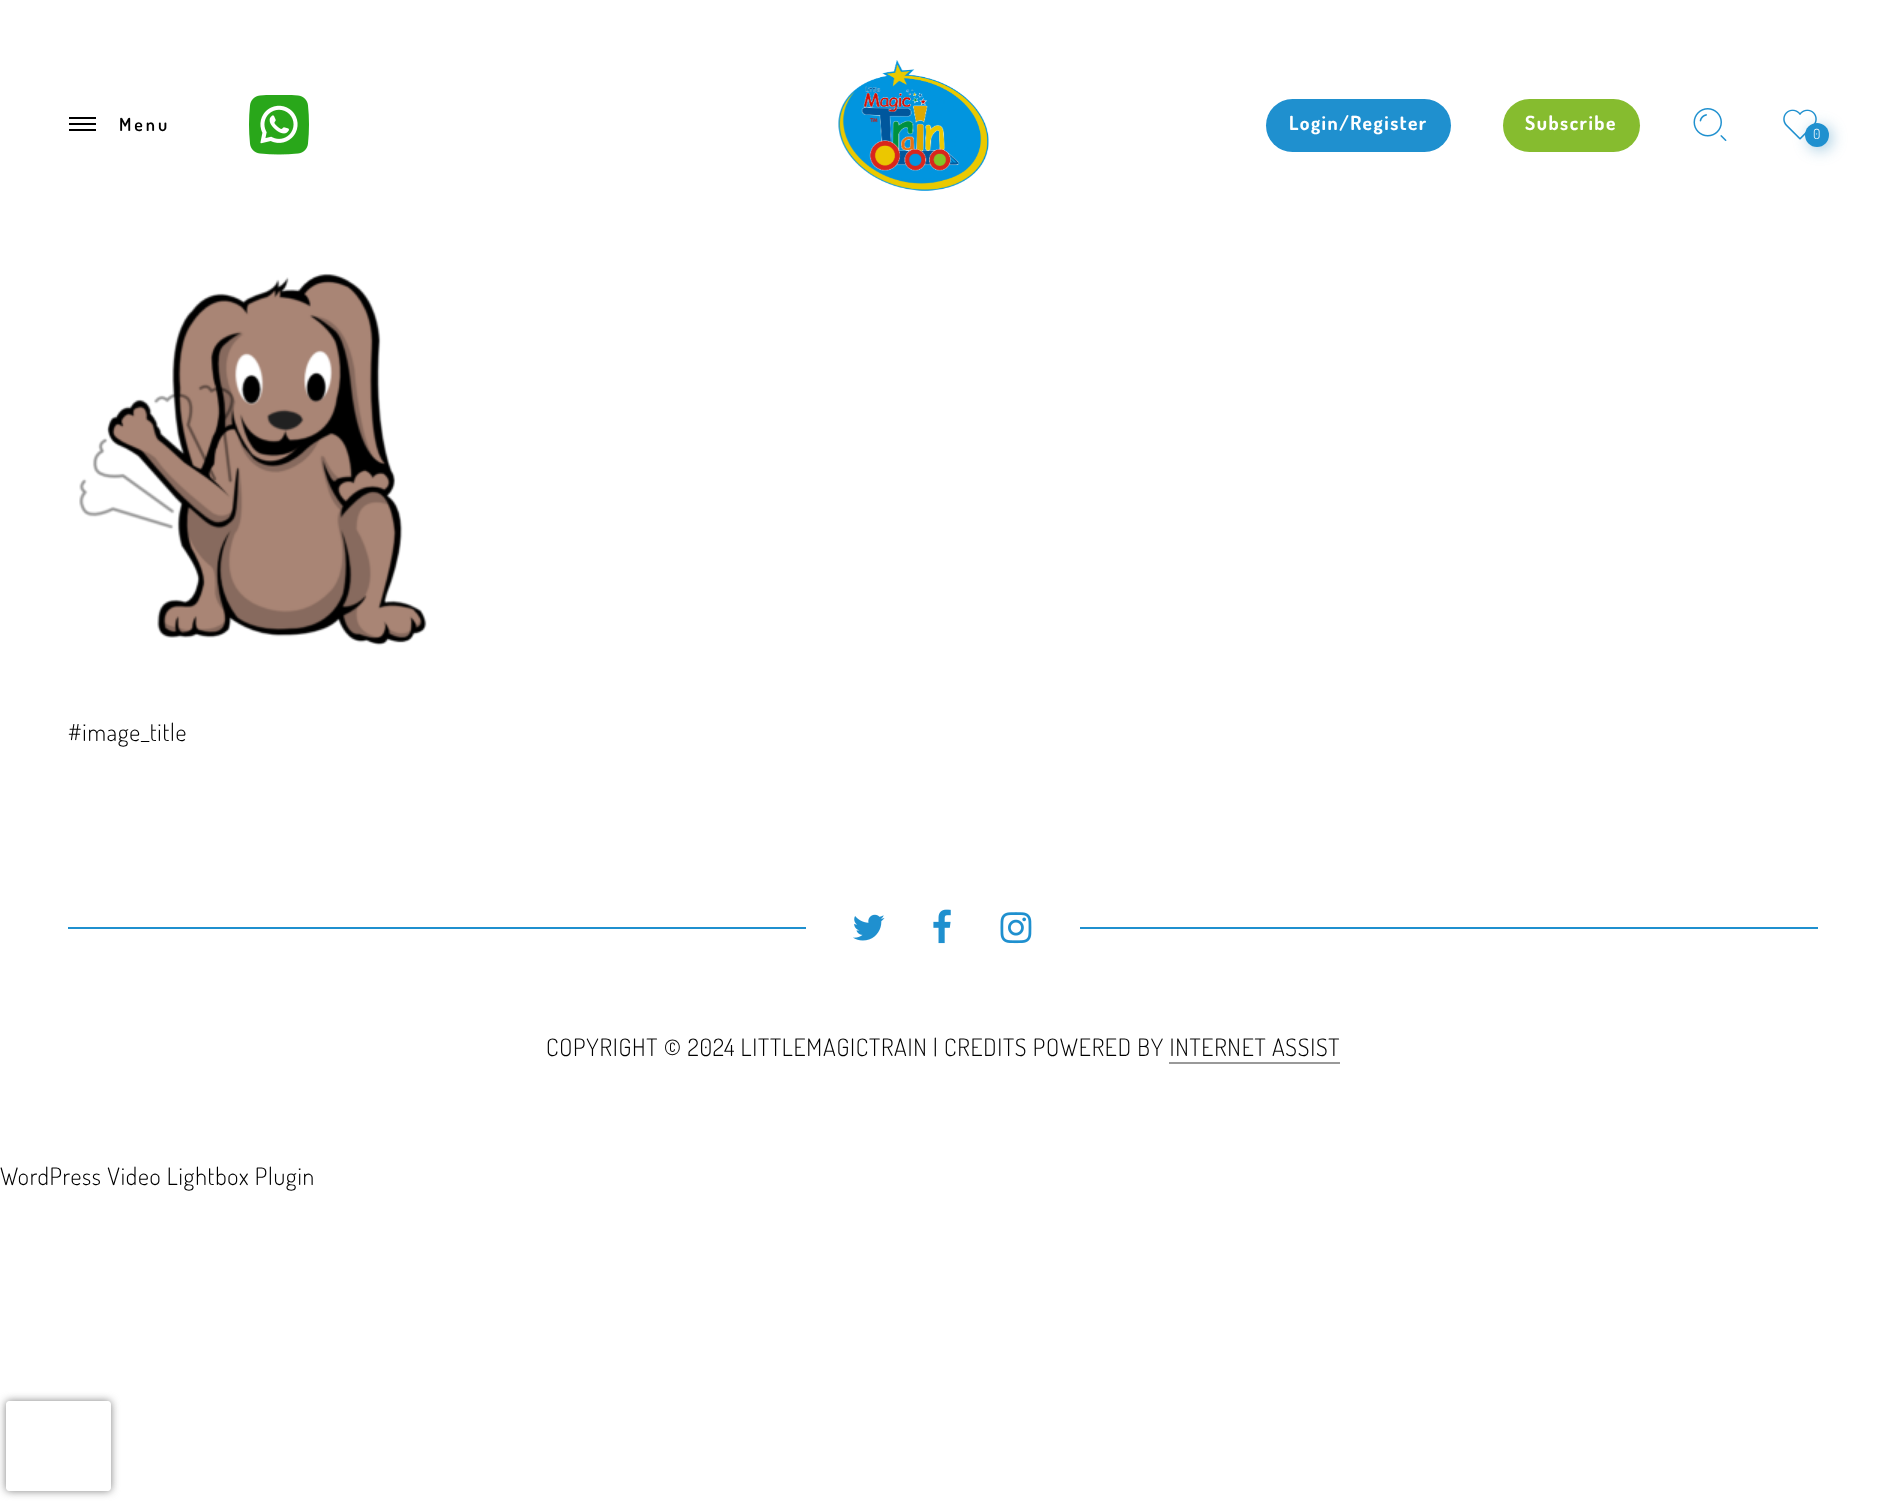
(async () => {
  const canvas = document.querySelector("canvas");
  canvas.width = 1885;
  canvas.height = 1511;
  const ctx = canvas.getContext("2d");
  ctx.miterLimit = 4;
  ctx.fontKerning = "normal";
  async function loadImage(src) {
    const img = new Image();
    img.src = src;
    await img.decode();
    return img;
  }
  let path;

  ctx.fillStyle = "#ffffff";
  ctx.fillRect(0, 0, 1885, 1511);
  for (const [x, y, w, h, color] of [
    [69, 123, 27, 2, "#000000"],
    [69, 117, 27, 2, "#000000"],
    [69, 129, 27, 2, "#000000"],
  ]) {
    ctx.fillStyle = color;
    ctx.fillRect(x, y, w, h);
  }
  ctx.drawImage(await loadImage("img/1.png"), 249, 95, 60, 60);
  ctx.drawImage(await loadImage("img/2.png"), 838, 60, 151, 131);
  ctx.fillStyle = "#1f90cf";
  ctx.beginPath();
  ctx.roundRect(1266, 99, 185, 53, 26.5);
  ctx.fill();
  ctx.fillStyle = "#86bc2f";
  ctx.beginPath();
  ctx.roundRect(1503, 99, 137, 53, 26.5);
  ctx.fill();
  ctx.drawImage(await loadImage("img/3.png"), 1693, 108, 34, 33);
  ctx.drawImage(await loadImage("img/4.png"), 1783, 109, 34, 31);
  ctx.fillStyle = "rgba(26, 122, 176, 0.4)";
  ctx.filter = "blur(7.5px)";
  ctx.beginPath();
  ctx.roundRect(1808, 126, 24, 24, 12);
  ctx.fill();
  ctx.filter = "none";
  ctx.fillStyle = "#1f90cf";
  ctx.beginPath();
  ctx.arc(1817, 135, 12, 0, Math.PI * 2);
  ctx.fill();
  ctx.drawImage(await loadImage("img/5.png"), 79, 273, 348, 373);
  ctx.fillRect(68, 927, 1750, 2);
  ctx.fillStyle = "#ffffff";
  ctx.fillRect(806, 927, 274, 2);
  ctx.drawImage(await loadImage("img/6.png"), 853, 914, 32, 27);
  ctx.drawImage(await loadImage("img/7.png"), 933, 909, 18, 35);
  ctx.drawImage(await loadImage("img/8.png"), 1000, 912, 32, 32);
  ctx.fillStyle = "#999999";
  ctx.fillRect(1169, 1062, 171, 2);
  ctx.save();
  path = new Path2D("M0 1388H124V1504H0ZM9 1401H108C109.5 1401 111 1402.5 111 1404V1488C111 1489.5 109.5 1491 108 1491H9C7.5 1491 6 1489.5 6 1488V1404C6 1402.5 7.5 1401 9 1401Z");
  ctx.clip(path, "evenodd");
  ctx.fillStyle = "#808080";
  ctx.filter = "blur(4px)";
  ctx.beginPath();
  ctx.roundRect(6, 1401, 105, 90, 3);
  ctx.fill();
  ctx.filter = "none";
  ctx.restore();
  ctx.letterSpacing = "3px";
  ctx.font = "600 18px Dosis";
  ctx.fillStyle = "#000000";
  ctx.fillText("Menu", 119, 131);
  ctx.letterSpacing = "1.5px";
  ctx.font = "bold 19.5px Dosis";
  ctx.fillStyle = "#ffffff";
  ctx.fillText("Login/Register", 1289, 130);
  ctx.fillText("Subscribe", 1525, 130);
  ctx.letterSpacing = "0.75px";
  ctx.font = "300 14px Dosis";
  ctx.fillText("0", 1813, 139);
  ctx.font = "300 24px Dosis";
  ctx.fillStyle = "#000000";
  for (const [text, x, y] of [
    ["#image_title", 68, 741],
    ["COPYRIGHT © 2024 LITTLEMAGICTRAIN | CREDITS POWERED BY INTERNET ASSIST", 546, 1056],
    ["WordPress Video Lightbox Plugin", 0, 1185],
  ]) {
    ctx.fillText(text, x, y);
  }
})();
